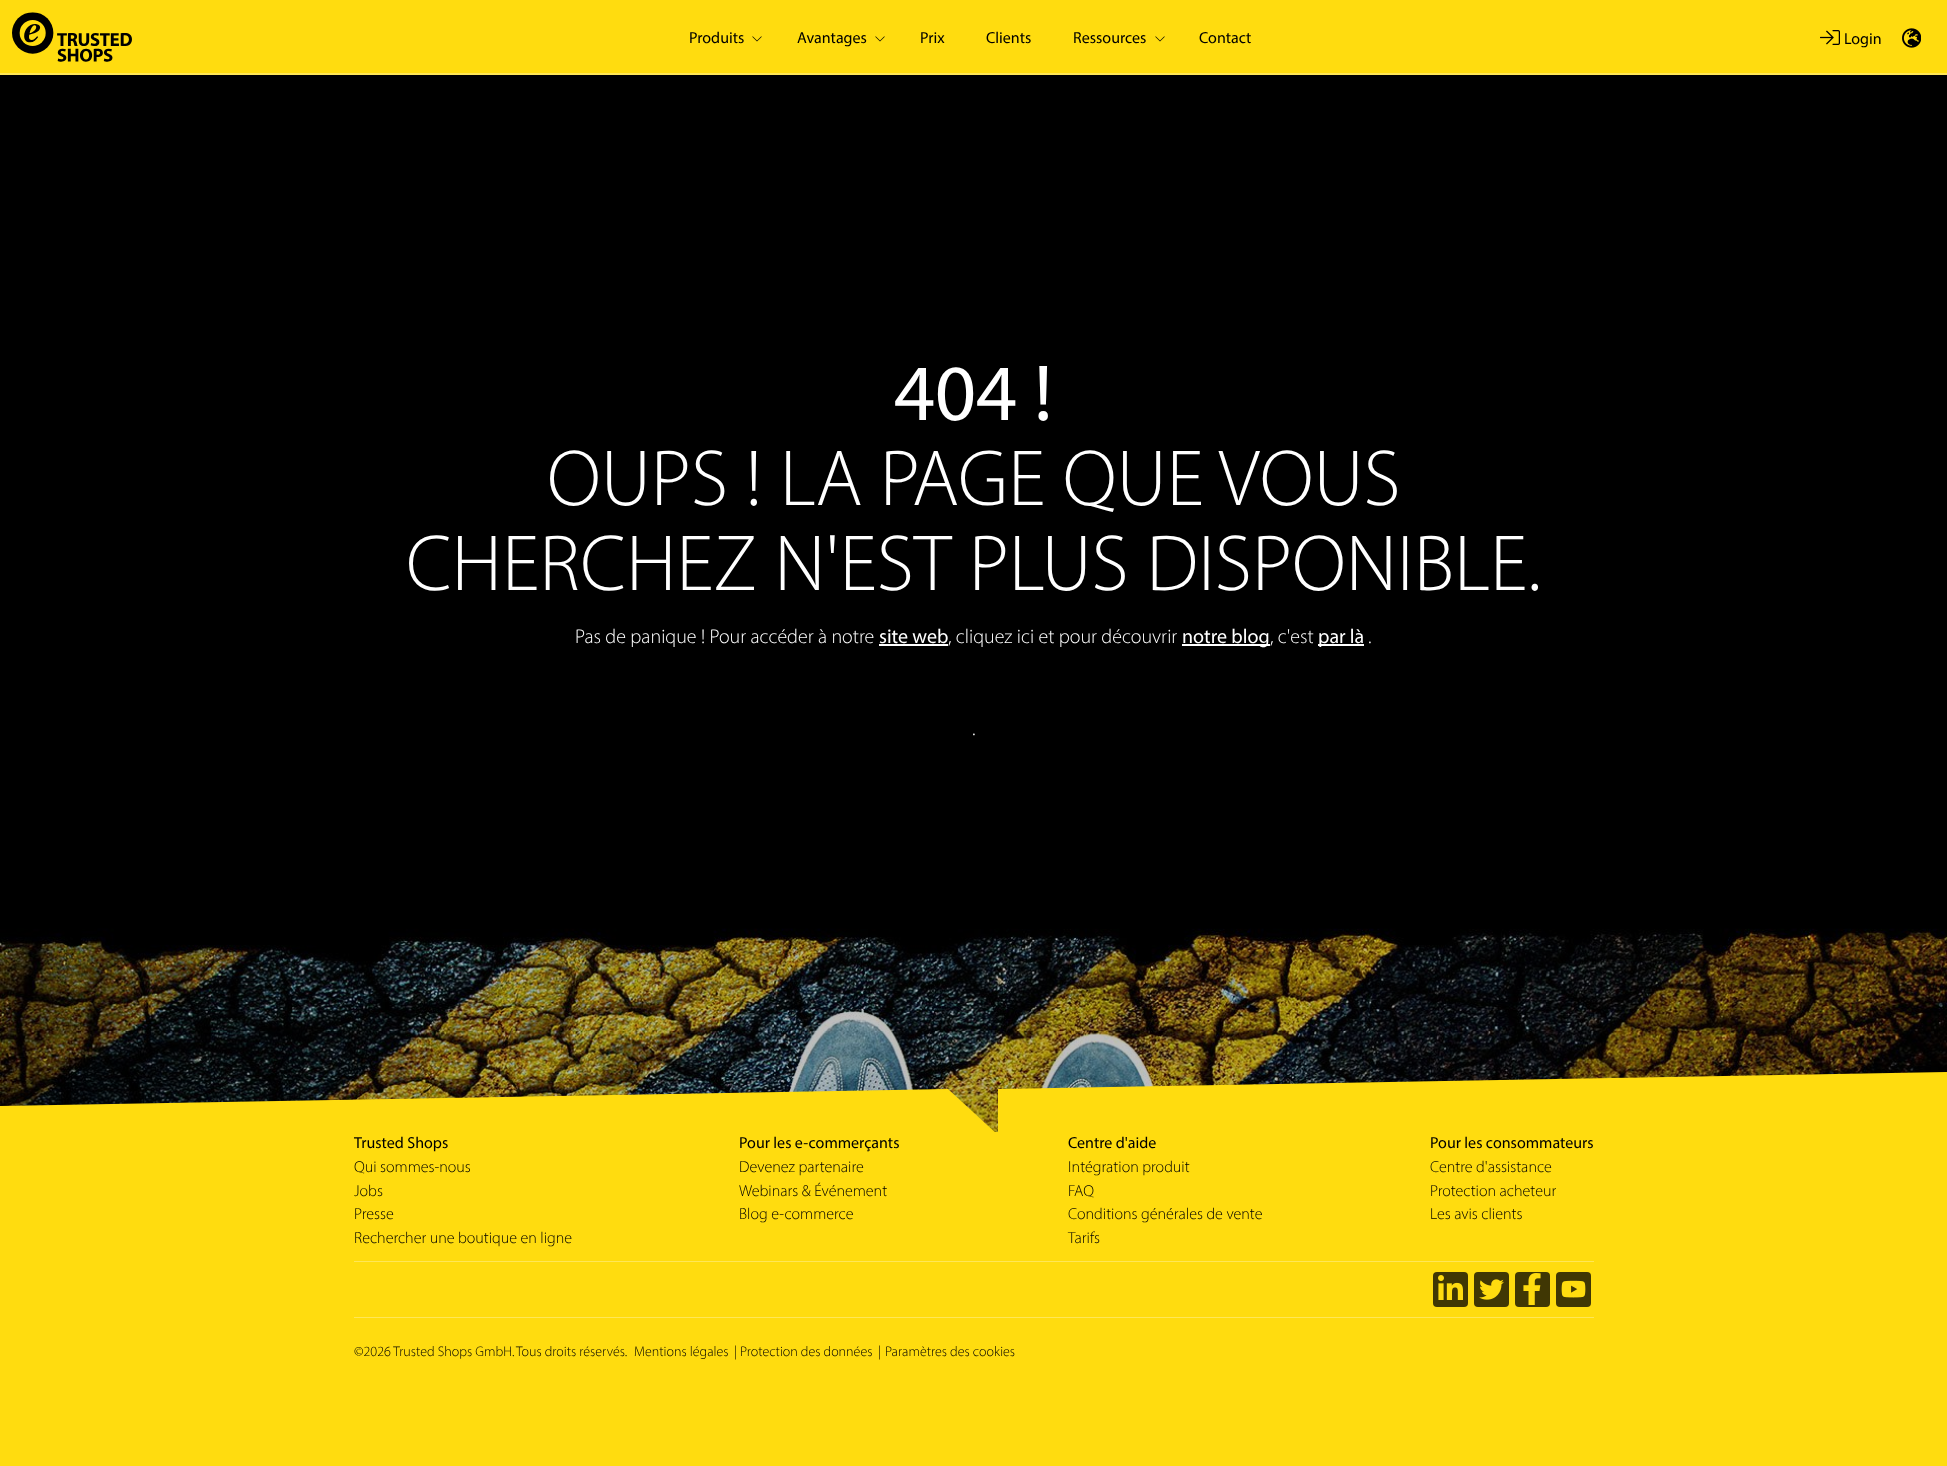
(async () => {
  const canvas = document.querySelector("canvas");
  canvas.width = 1947;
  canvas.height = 1466;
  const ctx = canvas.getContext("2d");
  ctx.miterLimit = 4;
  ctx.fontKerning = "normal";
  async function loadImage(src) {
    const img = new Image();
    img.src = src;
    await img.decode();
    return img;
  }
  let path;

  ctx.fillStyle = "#ffffff";
  ctx.fillRect(0, 0, 1947, 1466);
  ctx.fillStyle = "#ffdc0f";
  ctx.fillRect(0, 0, 1947, 73);
  ctx.fillStyle = "#ffe757";
  ctx.fillRect(0, 73, 1947, 2);
  ctx.drawImage(await loadImage("img/1.png"), 12, 12, 120, 50);
  ctx.drawImage(await loadImage("img/2.png"), 752, 36, 10, 6);
  ctx.drawImage(await loadImage("img/2.png"), 875, 36, 10, 6);
  ctx.drawImage(await loadImage("img/2.png"), 1155, 36, 10, 6);
  ctx.drawImage(await loadImage("img/3.png"), 1820, 30, 20, 15);
  ctx.drawImage(await loadImage("img/4.png"), 1902, 28, 19, 20);
  ctx.drawImage(await loadImage("img/5.png"), 0, 75, 1947, 1057);
  for (const [x, y, w, h, color] of [
    [879, 644, 69, 2, "#ffffff"],
    [1182, 644, 88, 2, "#ffffff"],
    [1318, 644, 46, 2, "#ffffff"],
  ]) {
    ctx.fillStyle = color;
    ctx.fillRect(x, y, w, h);
  }
  ctx.fillStyle = "#ffdc0f";
  path = new Path2D("M0 1106L948 1089V1149L0 1166Z");
  ctx.fill(path);
  path = new Path2D("M948 1089L998 1135V1195L948 1149Z");
  ctx.fill(path);
  path = new Path2D("M998 1089L1947 1072V1132L998 1149Z");
  ctx.fill(path);
  for (const [x, y, w, h, color] of [
    [0, 1132, 1947, 334, "#ffdc0f"],
    [354, 1261, 1240, 1, "#ffe757"],
    [354, 1317, 1240, 1, "#ffe757"],
  ]) {
    ctx.fillStyle = color;
    ctx.fillRect(x, y, w, h);
  }
  ctx.fillStyle = "#403704";
  ctx.beginPath();
  ctx.roundRect(1433, 1272, 35, 35, 4);
  ctx.fill();
  ctx.drawImage(await loadImage("img/6.png"), 1438, 1275, 25, 25);
  ctx.beginPath();
  ctx.roundRect(1474, 1272, 35, 35, 4);
  ctx.fill();
  ctx.drawImage(await loadImage("img/7.png"), 1479, 1279, 25, 21);
  ctx.beginPath();
  ctx.roundRect(1515, 1272, 35, 35, 4);
  ctx.fill();
  ctx.drawImage(await loadImage("img/8.png"), 1523, 1273, 18, 32);
  ctx.beginPath();
  ctx.roundRect(1556, 1272, 35, 35, 4);
  ctx.fill();
  ctx.drawImage(await loadImage("img/9.png"), 1561, 1280, 25, 18);
  ctx.font = "16px Myriad";
  ctx.fillStyle = "#000000";
  for (const [text, x, y] of [
    ["Produits", 689, 43],
    ["Avantages", 797, 43],
    ["Prix", 920, 43],
    ["Clients", 986, 43],
    ["Ressources", 1073, 43],
    ["Contact", 1199, 43],
    ["Login", 1844, 44],
  ]) {
    ctx.fillText(text, x, y);
  }
  ctx.font = "80px Myriad";
  ctx.fillStyle = "#ffffff";
  ctx.fillText("404 !", 894, 420);
  ctx.font = "300 80px Myriad";
  ctx.fillText("OUPS ! LA PAGE QUE VOUS", 547, 505);
  ctx.fillText("CHERCHEZ N'EST PLUS DISPONIBLE.", 406, 590);
  ctx.font = "300 20px Myriad";
  ctx.fillText("Pas de panique ! Pour accéder à notre", 575, 643);
  ctx.font = "20px Myriad";
  ctx.fillText("site web", 879, 643);
  ctx.font = "300 20px Myriad";
  ctx.fillText(", cliquez ici et pour découvrir", 948, 643);
  ctx.font = "20px Myriad";
  ctx.fillText("notre blog", 1182, 643);
  ctx.font = "300 20px Myriad";
  ctx.fillText(", c'est", 1270, 643);
  ctx.font = "20px Myriad";
  ctx.fillText("par là", 1318, 643);
  ctx.font = "300 20px Myriad";
  ctx.fillText(".", 1368, 643);
  ctx.fillText(".", 972, 735);
  ctx.font = "16px Myriad";
  ctx.fillStyle = "#000000";
  ctx.fillText("Trusted Shops", 354, 1148);
  ctx.font = "300 16px Myriad";
  for (const [text, x, y] of [
    ["Qui sommes-nous", 354, 1172],
    ["Jobs", 354, 1196],
    ["Presse", 354, 1219],
    ["Rechercher une boutique en ligne", 354, 1243],
  ]) {
    ctx.fillText(text, x, y);
  }
  ctx.font = "16px Myriad";
  ctx.fillText("Pour les e-commerçants", 739, 1148);
  ctx.font = "300 16px Myriad";
  for (const [text, x, y] of [
    ["Devenez partenaire", 739, 1172],
    ["Webinars & Événement", 739, 1196],
    ["Blog e-commerce", 739, 1219],
  ]) {
    ctx.fillText(text, x, y);
  }
  ctx.font = "16px Myriad";
  ctx.fillText("Centre d'aide", 1068, 1148);
  ctx.font = "300 16px Myriad";
  for (const [text, x, y] of [
    ["Intégration produit", 1068, 1172],
    ["FAQ", 1068, 1196],
    ["Conditions générales de vente", 1068, 1219],
    ["Tarifs", 1068, 1243],
  ]) {
    ctx.fillText(text, x, y);
  }
  ctx.font = "16px Myriad";
  ctx.fillText("Pour les consommateurs", 1430, 1148);
  ctx.font = "300 16px Myriad";
  for (const [text, x, y] of [
    ["Centre d'assistance", 1430, 1172],
    ["Protection acheteur", 1430, 1196],
    ["Les avis clients", 1430, 1219],
  ]) {
    ctx.fillText(text, x, y);
  }
  ctx.font = "300 14px Myriad";
  for (const [text, x, y] of [
    ["©2026 Trusted Shops GmbH.", 354, 1356],
    ["Tous droits réservés.", 516, 1356],
    ["Mentions légales", 634, 1356],
    ["|", 734, 1356],
    ["Protection des données", 740, 1356],
    ["|", 878, 1356],
    ["Paramètres des cookies", 885, 1356],
  ]) {
    ctx.fillText(text, x, y);
  }
})();
